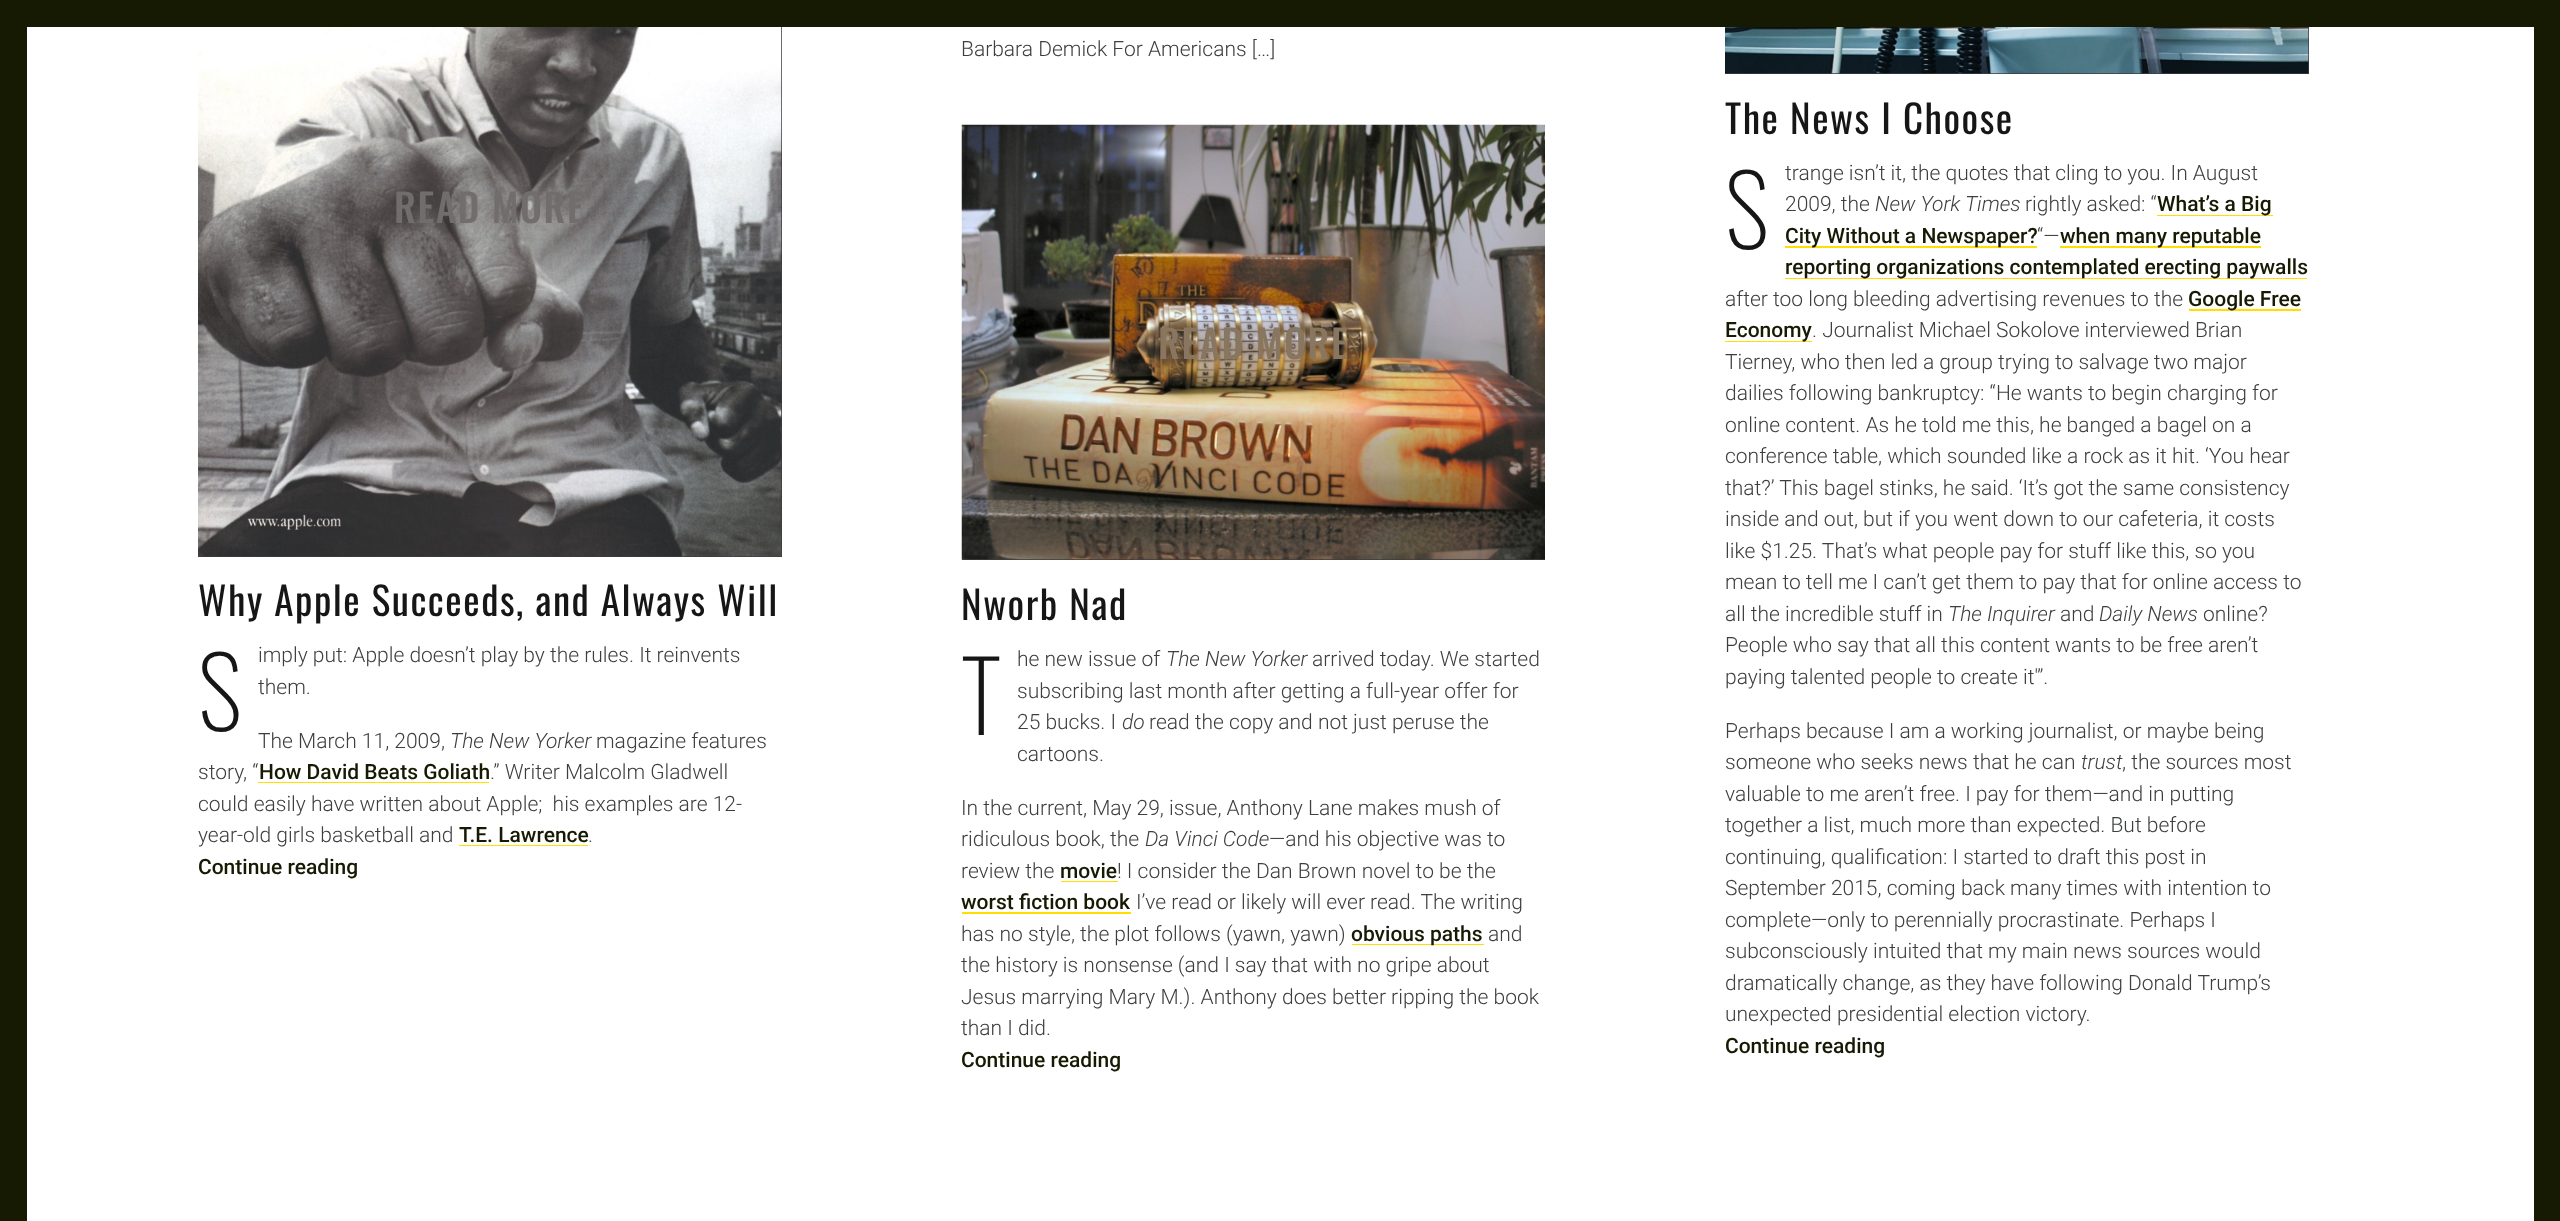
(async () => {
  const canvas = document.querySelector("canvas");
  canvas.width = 2560;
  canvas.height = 1221;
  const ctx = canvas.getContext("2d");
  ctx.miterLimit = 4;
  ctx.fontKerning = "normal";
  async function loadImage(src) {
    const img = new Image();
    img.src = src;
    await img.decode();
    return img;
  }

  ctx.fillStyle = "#ffffff";
  ctx.fillRect(0, 0, 2560, 1221);
  for (const [x, y, w, h, color] of [
    [2534, 27, 26, 1194, "#161a03"],
    [0, 27, 27, 1194, "#161a03"],
    [0, 0, 2560, 27, "#161a03"],
    [198, 27, 584, 530, "#3d3e40"],
  ]) {
    ctx.fillStyle = color;
    ctx.fillRect(x, y, w, h);
  }
  ctx.drawImage(await loadImage("img/1.png"), 198, 27, 584, 530);
  for (const [x, y, w, h, color] of [
    [258, 782, 231, 1, "#ffde00"],
    [459, 845, 129, 1, "#ffde00"],
    [962, 559, 583, 1, "#3d3e40"],
  ]) {
    ctx.fillStyle = color;
    ctx.fillRect(x, y, w, h);
  }
  ctx.drawImage(await loadImage("img/2.png"), 961, 124, 584, 436);
  for (const [x, y, w, h, color] of [
    [1061, 881, 57, 1, "#ffde00"],
    [962, 912, 169, 2, "#ffde00"],
    [1352, 944, 132, 1, "#ffde00"],
    [1725, 27, 584, 47, "#3d3e40"],
  ]) {
    ctx.fillStyle = color;
    ctx.fillRect(x, y, w, h);
  }
  ctx.drawImage(await loadImage("img/3.png"), 1725, 27, 584, 47);
  for (const [x, y, w, h, color] of [
    [2157, 215, 116, 1, "#ffde00"],
    [1785, 246, 252, 2, "#ffde00"],
    [2060, 246, 201, 2, "#ffde00"],
    [1785, 278, 522, 1, "#ffde00"],
    [2189, 309, 112, 2, "#ffde00"],
    [1725, 341, 87, 1, "#ffde00"],
  ]) {
    ctx.fillStyle = color;
    ctx.fillRect(x, y, w, h);
  }
  ctx.font = "300 21px Roboto";
  ctx.fillStyle = "#3d3e40";
  ctx.fillText("Barbara Demick For Americans […]", 961, 56);
  ctx.letterSpacing = "1.55px";
  ctx.font = "500 39px Oswald";
  ctx.fillStyle = "#716d6d";
  ctx.fillText("READ MORE", 394, 223);
  ctx.font = "39px Oswald";
  ctx.fillStyle = "#171617";
  ctx.fillText("Why Apple Succeeds, and Always Will", 198, 616);
  ctx.letterSpacing = "0px";
  ctx.font = "200 97px Oswald";
  ctx.fillText("S", 198, 731);
  ctx.font = "300 21px Roboto";
  ctx.fillStyle = "#3d3e40";
  for (const [text, x, y] of [
    ["imply put: Apple doesn’t play by the rules. It reinvents", 258, 662],
    ["them.", 258, 694],
    ["The March 11, 2009,", 258, 748],
  ]) {
    ctx.fillText(text, x, y);
  }
  ctx.font = "italic 300 21px Roboto";
  ctx.fillText("The New Yorker", 450, 748);
  ctx.font = "300 21px Roboto";
  ctx.fillText("magazine features", 596, 748);
  ctx.fillText("story, “", 198, 779);
  ctx.font = "500 21px Roboto";
  ctx.fillStyle = "#161a03";
  ctx.fillText("How David Beats Goliath", 259, 779);
  ctx.font = "300 21px Roboto";
  ctx.fillStyle = "#3d3e40";
  for (const [text, x, y] of [
    [".” Writer Malcolm Gladwell", 490, 779],
    ["could easily have written about Apple;  his examples are 12-", 198, 811],
    ["year-old girls basketball and", 198, 842],
  ]) {
    ctx.fillText(text, x, y);
  }
  ctx.font = "500 21px Roboto";
  ctx.fillStyle = "#161a03";
  ctx.fillText("T.E. Lawrence", 459, 842);
  ctx.font = "300 21px Roboto";
  ctx.fillStyle = "#3d3e40";
  ctx.fillText(".", 588, 842);
  ctx.font = "500 21px Roboto";
  ctx.fillStyle = "#161a03";
  ctx.fillText("Continue reading", 198, 874);
  ctx.letterSpacing = "1.55px";
  ctx.font = "500 39px Oswald";
  ctx.fillStyle = "#887661";
  ctx.fillText("READ MORE", 1158, 359);
  ctx.font = "39px Oswald";
  ctx.fillStyle = "#171617";
  ctx.fillText("Nworb Nad", 961, 620);
  ctx.letterSpacing = "0px";
  ctx.font = "200 97px Oswald";
  ctx.fillText("T", 961, 735);
  ctx.font = "300 21px Roboto";
  ctx.fillStyle = "#3d3e40";
  ctx.fillText("he new issue of", 1017, 666);
  ctx.font = "italic 300 21px Roboto";
  ctx.fillText("The New Yorker", 1166, 666);
  ctx.font = "300 21px Roboto";
  for (const [text, x, y] of [
    ["arrived today. We started", 1312, 666],
    ["subscribing last month after getting a full-year offer for", 1017, 698],
    ["25 bucks. I", 1017, 729],
  ]) {
    ctx.fillText(text, x, y);
  }
  ctx.font = "italic 300 21px Roboto";
  ctx.fillText("do", 1122, 729);
  ctx.font = "300 21px Roboto";
  for (const [text, x, y] of [
    ["read the copy and not just peruse the", 1149, 729],
    ["cartoons.", 1017, 761],
    ["In the current, May 29, issue, Anthony Lane makes mush of", 961, 815],
    ["ridiculous book, the", 961, 846],
  ]) {
    ctx.fillText(text, x, y);
  }
  ctx.font = "italic 300 21px Roboto";
  ctx.fillText("Da Vinci Code", 1145, 846);
  ctx.font = "300 21px Roboto";
  ctx.fillText("—and his objective was to", 1269, 846);
  ctx.fillText("review the", 961, 878);
  ctx.font = "500 21px Roboto";
  ctx.fillStyle = "#161a03";
  ctx.fillText("movie", 1060, 878);
  ctx.font = "300 21px Roboto";
  ctx.fillStyle = "#3d3e40";
  ctx.fillText("! I consider the Dan Brown novel to be the", 1117, 878);
  ctx.font = "500 21px Roboto";
  ctx.fillStyle = "#161a03";
  ctx.fillText("worst fiction book", 961, 909);
  ctx.font = "300 21px Roboto";
  ctx.fillStyle = "#3d3e40";
  ctx.fillText("I’ve read or likely will ever read. The writing", 1136, 909);
  ctx.fillText("has no style, the plot follows (yawn, yawn)", 961, 941);
  ctx.font = "500 21px Roboto";
  ctx.fillStyle = "#161a03";
  ctx.fillText("obvious paths", 1351, 941);
  ctx.font = "300 21px Roboto";
  ctx.fillStyle = "#3d3e40";
  for (const [text, x, y] of [
    ["and", 1488, 941],
    ["the history is nonsense (and I say that with no gripe about", 961, 972],
    ["Jesus marrying Mary M.). Anthony does better ripping the book", 961, 1004],
    ["than I did.", 961, 1035],
  ]) {
    ctx.fillText(text, x, y);
  }
  ctx.font = "500 21px Roboto";
  ctx.fillStyle = "#161a03";
  ctx.fillText("Continue reading", 961, 1067);
  ctx.letterSpacing = "1.55px";
  ctx.font = "39px Oswald";
  ctx.fillStyle = "#171617";
  ctx.fillText("The News I Choose", 1725, 134);
  ctx.letterSpacing = "0px";
  ctx.font = "200 97px Oswald";
  ctx.fillText("S", 1725, 249);
  ctx.font = "300 21px Roboto";
  ctx.fillStyle = "#3d3e40";
  ctx.fillText("trange isn’t it, the quotes that cling to you. In August", 1785, 180);
  ctx.fillText("2009, the", 1785, 211);
  ctx.font = "italic 300 21px Roboto";
  ctx.fillText("New York Times", 1875, 211);
  ctx.font = "300 21px Roboto";
  ctx.fillText("rightly asked: “", 2025, 211);
  ctx.font = "500 21px Roboto";
  ctx.fillStyle = "#161a03";
  ctx.fillText("What’s a Big", 2157, 211);
  ctx.fillText("City Without a Newspaper?", 1785, 243);
  ctx.font = "300 21px Roboto";
  ctx.fillStyle = "#3d3e40";
  ctx.fillText("“—", 2037, 243);
  ctx.font = "500 21px Roboto";
  ctx.fillStyle = "#161a03";
  ctx.fillText("when many reputable", 2060, 243);
  ctx.fillText("reporting organizations contemplated erecting paywalls", 1785, 274);
  ctx.font = "300 21px Roboto";
  ctx.fillStyle = "#3d3e40";
  ctx.fillText("after too long bleeding advertising revenues to the", 1725, 306);
  ctx.font = "500 21px Roboto";
  ctx.fillStyle = "#161a03";
  ctx.fillText("Google Free", 2188, 306);
  ctx.fillText("Economy", 1725, 337);
  ctx.font = "300 21px Roboto";
  ctx.fillStyle = "#3d3e40";
  for (const [text, x, y] of [
    [". Journalist Michael Sokolove interviewed Brian", 1812, 337],
    ["Tierney, who then led a group trying to salvage two major", 1725, 369],
    ["dailies following bankruptcy: “He wants to begin charging for", 1725, 400],
    ["online content. As he told me this, he banged a bagel on a", 1725, 432],
    ["conference table, which sounded like a rock as it hit. ‘You hear", 1725, 463],
    ["that?’ This bagel stinks, he said. ‘It’s got the same consistency", 1725, 495],
    ["inside and out, but if you went down to our cafeteria, it costs", 1725, 526],
    ["like $1.25. That’s what people pay for stuff like this, so you", 1725, 558],
    ["mean to tell me I can’t get them to pay that for online access to", 1725, 589],
    ["all the incredible stuff in", 1725, 621],
  ]) {
    ctx.fillText(text, x, y);
  }
  ctx.font = "italic 300 21px Roboto";
  ctx.fillText("The Inquirer", 1948, 621);
  ctx.font = "300 21px Roboto";
  ctx.fillText("and", 2060, 621);
  ctx.font = "italic 300 21px Roboto";
  ctx.fillText("Daily News", 2099, 621);
  ctx.font = "300 21px Roboto";
  for (const [text, x, y] of [
    ["online?", 2203, 621],
    ["People who say that all this content wants to be free aren’t", 1725, 652],
    ["paying talented people to create it'”.", 1725, 684],
    ["Perhaps because I am a working journalist, or maybe being", 1725, 738],
    ["someone who seeks news that he can", 1725, 769],
  ]) {
    ctx.fillText(text, x, y);
  }
  ctx.font = "italic 300 21px Roboto";
  ctx.fillText("trust", 2081, 769);
  ctx.font = "300 21px Roboto";
  for (const [text, x, y] of [
    [", the sources most", 2122, 769],
    ["valuable to me aren’t free. I pay for them—and in putting", 1725, 801],
    ["together a list, much more than expected. But before", 1725, 832],
    ["continuing, qualification: I started to draft this post in", 1725, 864],
    ["September 2015, coming back many times with intention to", 1725, 895],
    ["complete—only to perennially procrastinate. Perhaps I", 1725, 927],
    ["subconsciously intuited that my main news sources would", 1725, 958],
    ["dramatically change, as they have following Donald Trump’s", 1725, 990],
    ["unexpected presidential election victory.", 1725, 1021],
  ]) {
    ctx.fillText(text, x, y);
  }
  ctx.font = "500 21px Roboto";
  ctx.fillStyle = "#161a03";
  ctx.fillText("Continue reading", 1725, 1053);
})();
